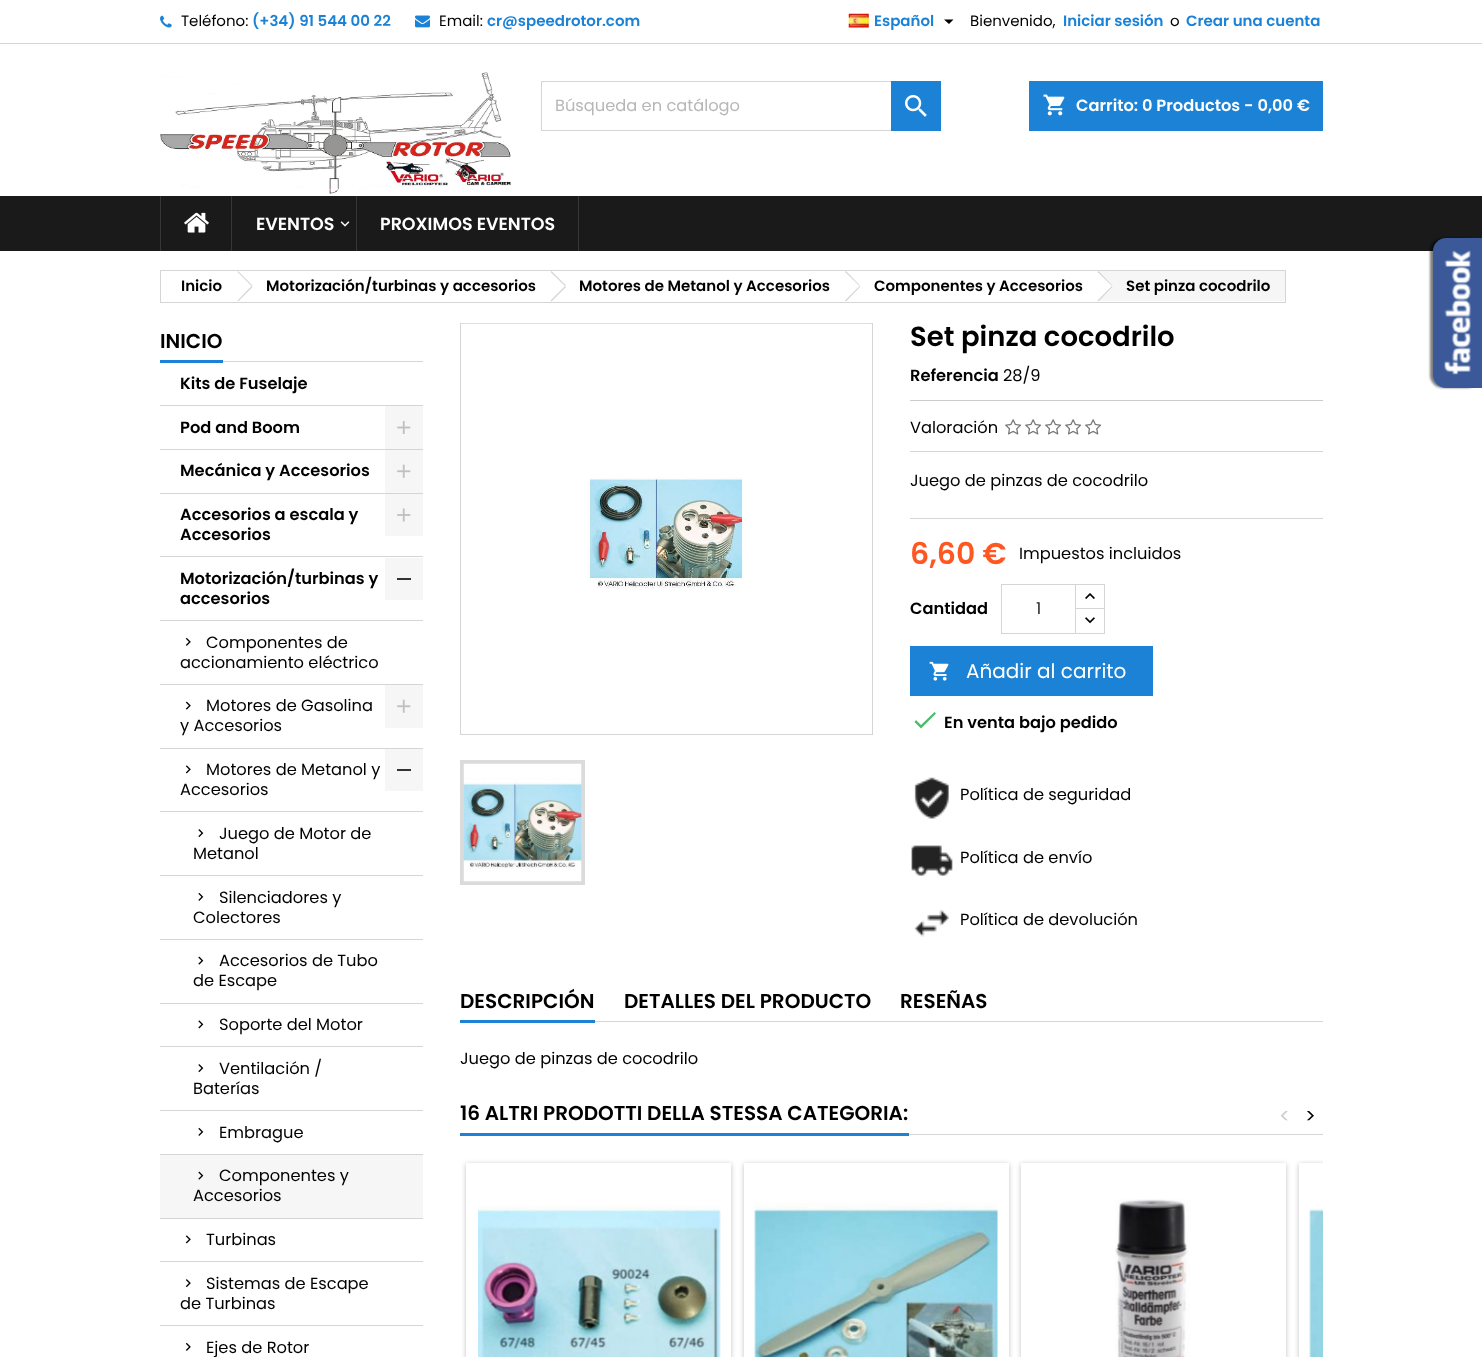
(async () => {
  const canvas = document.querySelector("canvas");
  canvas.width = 1482;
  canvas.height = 1357;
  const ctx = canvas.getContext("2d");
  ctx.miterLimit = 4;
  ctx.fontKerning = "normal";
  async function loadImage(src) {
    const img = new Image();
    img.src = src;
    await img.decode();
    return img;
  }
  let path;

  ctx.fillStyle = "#ffffff";
  ctx.fillRect(0, 0, 1482, 1357);
  ctx.fillStyle = "#d6d4d4";
  ctx.fillRect(0, 43, 1482, 1);
  ctx.drawImage(await loadImage("img/1.png"), 160, 15, 12, 13);
  ctx.drawImage(await loadImage("img/2.png"), 415, 15, 15, 13);
  ctx.drawImage(await loadImage("img/3.png"), 848, 13, 21, 15);
  ctx.fillStyle = "#000000";
  path = new Path2D("M944 19.5H953.5L949 24Z");
  ctx.fill(path);
  ctx.drawImage(await loadImage("img/4.png"), 160, 72, 351, 124);
  ctx.strokeStyle = "#d6d4d4";
  ctx.strokeRect(541.5, 81.5, 399, 49);
  ctx.fillStyle = "#1b82d6";
  ctx.fillRect(891, 81, 50, 50);
  ctx.drawImage(await loadImage("img/5.png"), 905, 95, 22, 22);
  ctx.fillRect(1029, 81, 294, 50);
  ctx.drawImage(await loadImage("img/6.png"), 1043, 94, 22, 22);
  ctx.fillStyle = "#1b1a1b";
  ctx.fillRect(0, 196, 1482, 55);
  ctx.fillStyle = "#363636";
  ctx.fillRect(160, 196, 1, 55);
  ctx.drawImage(await loadImage("img/7.png"), 184, 212, 25, 21);
  ctx.fillRect(231, 196, 1, 55);
  ctx.drawImage(await loadImage("img/8.png"), 340, 221, 10, 6);
  ctx.fillRect(578, 196, 1, 55);
  ctx.fillRect(356, 196, 1, 55);
  ctx.strokeRect(160.5, 270.5, 1125, 32);
  ctx.fillStyle = "#d6d4d4";
  path = new Path2D("M238 271L252.5 285.5L251.5 286L237.5 272ZM251.5 286L252.5 287L238 301.5L237.5 300.5Z");
  ctx.fill(path);
  path = new Path2D("M551.5 271L566 285.5L565 286L550.5 272ZM565 286L566 287L551.5 301.5L550.5 300.5Z");
  ctx.fill(path);
  path = new Path2D("M846 271L860 285.5L859.5 286L845 272ZM859.5 286L860 287L846 301.5L845 300.5Z");
  ctx.fill(path);
  ctx.fillStyle = "#f6f6f6";
  ctx.fillRect(1099, 271, 186, 30);
  ctx.fillStyle = "#ffffff";
  path = new Path2D("M1099.5 272L1112 284.5C1113 285.5 1113 287 1112 288L1099.5 300.5C1098.5 301.5 1097 301.5 1096 300.5L1083.5 288C1082.5 287 1082.5 285.5 1083.5 284.5L1096 272C1097 271 1098.5 271 1099.5 272Z");
  ctx.fill(path);
  ctx.fillStyle = "#d6d4d4";
  path = new Path2D("M1098.5 271L1112.5 285.5L1112 286L1097.5 272ZM1112 286L1112.5 287L1098.5 301.5L1097.5 300.5Z");
  ctx.fill(path);
  for (const [x, y, w, h, color] of [
    [223, 361, 200, 1, "#d6d4d4"],
    [160, 360, 63, 3, "#1b82d6"],
    [160, 405, 263, 1, "#d6d4d4"],
    [160, 449, 263, 1, "#d6d4d4"],
    [385, 406, 38, 43, "#f6f6f6"],
  ]) {
    ctx.fillStyle = color;
    ctx.fillRect(x, y, w, h);
  }
  ctx.drawImage(await loadImage("img/9.png"), 397, 421, 14, 13);
  ctx.fillStyle = "#d6d4d4";
  ctx.fillRect(160, 493, 263, 1);
  ctx.fillStyle = "#f6f6f6";
  ctx.fillRect(385, 450, 38, 43);
  ctx.drawImage(await loadImage("img/10.png"), 397, 464, 14, 14);
  ctx.fillStyle = "#d6d4d4";
  ctx.fillRect(160, 556, 263, 1);
  ctx.fillStyle = "#f6f6f6";
  ctx.fillRect(385, 494, 38, 42);
  ctx.drawImage(await loadImage("img/11.png"), 397, 508, 14, 14);
  for (const [x, y, w, h, color] of [
    [160, 620, 263, 1, "#d6d4d4"],
    [385, 558, 38, 42, "#f6f6f6"],
    [397, 578, 14, 2, "#333333"],
    [160, 684, 263, 1, "#d6d4d4"],
  ]) {
    ctx.fillStyle = color;
    ctx.fillRect(x, y, w, h);
  }
  ctx.drawImage(await loadImage("img/12.png"), 185, 637, 6, 9);
  ctx.fillRect(160, 748, 263, 1);
  ctx.drawImage(await loadImage("img/13.png"), 185, 701, 6, 9);
  ctx.fillStyle = "#f6f6f6";
  ctx.fillRect(385, 685, 38, 43);
  ctx.drawImage(await loadImage("img/10.png"), 397, 699, 14, 14);
  ctx.fillStyle = "#d6d4d4";
  ctx.fillRect(160, 811, 263, 1);
  ctx.drawImage(await loadImage("img/14.png"), 185, 765, 6, 9);
  for (const [x, y, w, h, color] of [
    [385, 749, 38, 42, "#f6f6f6"],
    [397, 769, 14, 2, "#333333"],
    [160, 875, 263, 1, "#d6d4d4"],
  ]) {
    ctx.fillStyle = color;
    ctx.fillRect(x, y, w, h);
  }
  ctx.drawImage(await loadImage("img/15.png"), 198, 829, 6, 9);
  ctx.fillRect(160, 939, 263, 1);
  ctx.drawImage(await loadImage("img/16.png"), 198, 892, 6, 9);
  ctx.fillRect(160, 1003, 263, 1);
  ctx.drawImage(await loadImage("img/17.png"), 198, 956, 6, 9);
  ctx.fillRect(160, 1046, 263, 1);
  ctx.drawImage(await loadImage("img/18.png"), 198, 1020, 6, 9);
  ctx.fillRect(160, 1110, 263, 1);
  ctx.drawImage(await loadImage("img/15.png"), 198, 1064, 6, 9);
  ctx.fillRect(160, 1154, 263, 1);
  ctx.drawImage(await loadImage("img/16.png"), 198, 1127, 6, 9);
  ctx.fillStyle = "#f6f6f6";
  ctx.fillRect(160, 1155, 263, 63);
  ctx.fillStyle = "#d6d4d4";
  ctx.fillRect(160, 1218, 263, 1);
  ctx.drawImage(await loadImage("img/19.png"), 198, 1171, 6, 9);
  ctx.fillRect(160, 1261, 263, 1);
  ctx.drawImage(await loadImage("img/14.png"), 185, 1235, 6, 9);
  ctx.fillRect(160, 1325, 263, 1);
  ctx.drawImage(await loadImage("img/20.png"), 185, 1279, 6, 9);
  ctx.drawImage(await loadImage("img/12.png"), 185, 1342, 6, 9);
  ctx.strokeRect(460.5, 323.5, 412, 411);
  ctx.drawImage(await loadImage("img/21.png"), 461, 323, 410, 267);
  ctx.strokeStyle = "#dbdbdb";
  ctx.lineWidth = 4;
  ctx.strokeRect(462, 762, 121, 121);
  ctx.drawImage(await loadImage("img/22.png"), 463, 763, 119, 119);
  ctx.fillStyle = "#cccccc";
  ctx.fillRect(910, 400, 413, 1);
  ctx.drawImage(await loadImage("img/23.png"), 1005, 419, 17, 16);
  ctx.drawImage(await loadImage("img/23.png"), 1025, 419, 17, 16);
  ctx.drawImage(await loadImage("img/23.png"), 1045, 419, 17, 16);
  ctx.drawImage(await loadImage("img/23.png"), 1065, 419, 17, 16);
  ctx.drawImage(await loadImage("img/23.png"), 1085, 419, 17, 16);
  ctx.fillStyle = "#d6d4d4";
  ctx.fillRect(910, 451, 413, 1);
  ctx.fillRect(910, 518, 413, 1);
  ctx.strokeStyle = "#d6d4d4";
  ctx.lineWidth = 1;
  ctx.strokeRect(1075.5, 584.5, 29, 25);
  ctx.fillStyle = "#ffffff";
  ctx.fillRect(1076, 609, 28, 1);
  ctx.strokeRect(1075.5, 608.5, 29, 25);
  ctx.strokeRect(1001.5, 584.5, 74, 49);
  ctx.drawImage(await loadImage("img/24.png"), 1085, 593, 10, 6);
  ctx.drawImage(await loadImage("img/25.png"), 1085, 617, 10, 7);
  ctx.fillStyle = "#1b82d6";
  ctx.fillRect(910, 646, 243, 50);
  ctx.drawImage(await loadImage("img/26.png"), 929, 661, 20, 20);
  ctx.fillStyle = "#4cbb6c";
  path = new Path2D("M921 725L934.5 712L936 713.5L921 728.5L914.5 722L916 720Z");
  ctx.fill(path);
  ctx.drawImage(await loadImage("img/27.png"), 914, 777, 35, 42);
  ctx.drawImage(await loadImage("img/28.png"), 911, 845, 42, 31);
  ctx.drawImage(await loadImage("img/29.png"), 914, 909, 35, 28);
  for (const [x, y, w, h, color] of [
    [595, 1021, 728, 1, "#d6d4d4"],
    [460, 1020, 135, 3, "#1b82d6"],
    [909, 1134, 414, 1, "#d6d4d4"],
    [460, 1133, 449, 3, "#1b82d6"],
  ]) {
    ctx.fillStyle = color;
    ctx.fillRect(x, y, w, h);
  }
  ctx.fillStyle = "rgba(0, 0, 0, 0.24)";
  ctx.filter = "blur(2.5px)";
  ctx.beginPath();
  ctx.rect(466, 1164, 265, 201);
  ctx.fill();
  ctx.filter = "none";
  ctx.fillStyle = "#ffffff";
  ctx.fillRect(466, 1163, 265, 194);
  ctx.drawImage(await loadImage("img/30.png"), 478, 1205, 243, 152);
  ctx.fillStyle = "rgba(0, 0, 0, 0.24)";
  ctx.filter = "blur(2.5px)";
  ctx.beginPath();
  ctx.rect(744, 1164, 265, 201);
  ctx.fill();
  ctx.filter = "none";
  ctx.fillStyle = "#ffffff";
  ctx.fillRect(744, 1163, 265, 194);
  ctx.drawImage(await loadImage("img/31.png"), 754, 1202, 244, 155);
  ctx.fillStyle = "rgba(0, 0, 0, 0.24)";
  ctx.filter = "blur(2.5px)";
  ctx.beginPath();
  ctx.rect(1021, 1164, 265, 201);
  ctx.fill();
  ctx.filter = "none";
  ctx.fillStyle = "#ffffff";
  ctx.fillRect(1021, 1163, 265, 194);
  ctx.drawImage(await loadImage("img/32.png"), 1115, 1199, 75, 158);
  ctx.save();
  ctx.beginPath();
  ctx.rect(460, 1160, 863, 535);
  ctx.clip();
  path = new Path2D("M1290 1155H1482V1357H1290ZM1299 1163H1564V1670H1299Z");
  ctx.clip(path, "evenodd");
  ctx.fillStyle = "rgba(0, 0, 0, 0.24)";
  ctx.filter = "blur(2.5px)";
  ctx.beginPath();
  ctx.rect(1299, 1164, 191, 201);
  ctx.fill();
  ctx.filter = "none";
  ctx.restore();
  ctx.drawImage(await loadImage("img/33.png"), 1309, 1208, 14, 149);
  ctx.fillStyle = "rgba(0, 0, 0, 0.5)";
  ctx.filter = "blur(1px)";
  ctx.beginPath();
  ctx.roundRect(1430, 238, 50, 150, 13);
  ctx.fill();
  ctx.filter = "none";
  ctx.fillStyle = "#3b5998";
  path = new Path2D("M1446 238H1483V388H1446C1439 388 1433 382 1433 375V251C1433 244 1439 238 1446 238Z");
  ctx.fill(path);
  ctx.drawImage(await loadImage("img/34.png"), 1444, 250, 27, 125);
  ctx.font = "15px Poppins";
  ctx.fillStyle = "#000000";
  ctx.fillText("Teléfono:", 181, 26);
  ctx.font = "600 15px Poppins";
  ctx.fillStyle = "#1b82d6";
  ctx.fillText("(+34) 91 544 00 22", 252, 26);
  ctx.font = "15px Poppins";
  ctx.fillStyle = "#000000";
  ctx.fillText("Email:", 439, 26);
  ctx.font = "600 15px Poppins";
  ctx.fillStyle = "#1b82d6";
  ctx.fillText("cr@speedrotor.com", 487, 26);
  ctx.fillText("Español", 874, 26);
  ctx.font = "15px Poppins";
  ctx.fillStyle = "#000000";
  ctx.fillText("Bienvenido,", 970, 26);
  ctx.font = "600 15px Poppins";
  ctx.fillStyle = "#1b82d6";
  ctx.fillText("Iniciar sesión", 1063, 26);
  ctx.font = "15px Poppins";
  ctx.fillStyle = "#000000";
  ctx.fillText("o", 1170, 26);
  ctx.font = "600 15px Poppins";
  ctx.fillStyle = "#1b82d6";
  ctx.fillText("Crear una cuenta", 1186, 26);
  ctx.font = "16.25px Poppins";
  ctx.fillStyle = "#b7b7b7";
  ctx.fillText("Búsqueda en catálogo", 555, 111);
  ctx.font = "600 16.25px Poppins";
  ctx.fillStyle = "#ffffff";
  ctx.fillText("Carrito: 0 Productos - 0,00 €", 1076, 111);
  ctx.font = "600 17.5px Poppins";
  ctx.fillText("EVENTOS", 256, 230);
  ctx.fillText("PROXIMOS EVENTOS", 380, 230);
  ctx.font = "600 15px Poppins";
  ctx.fillStyle = "#000000";
  for (const [text, x, y] of [
    ["Inicio", 181, 291],
    ["Motorización/turbinas y accesorios", 266, 291],
    ["Motores de Metanol y Accesorios", 579, 291],
    ["Componentes y Accesorios", 874, 291],
    ["Set pinza cocodrilo", 1126, 291],
  ]) {
    ctx.fillText(text, x, y);
  }
  ctx.font = "600 20px Poppins";
  ctx.fillText("INICIO", 160, 348);
  ctx.font = "600 16.25px Poppins";
  for (const [text, x, y] of [
    ["Kits de Fuselaje", 180, 389],
    ["Pod and Boom", 180, 433],
    ["Mecánica y Accesorios", 180, 476],
    ["Accesorios a escala y", 180, 520],
    ["Accesorios", 180, 540],
    ["Motorización/turbinas y", 180, 584],
    ["accesorios", 180, 604],
  ]) {
    ctx.fillText(text, x, y);
  }
  ctx.font = "16.25px Poppins";
  for (const [text, x, y] of [
    ["Componentes de", 206, 648],
    ["accionamiento eléctrico", 180, 668],
    ["Motores de Gasolina", 206, 711],
    ["y Accesorios", 180, 731],
    ["Motores de Metanol y", 206, 775],
    ["Accesorios", 180, 795],
    ["Juego de Motor de", 219, 839],
    ["Metanol", 193, 859],
    ["Silenciadores y", 219, 903],
    ["Colectores", 193, 923],
    ["Accesorios de Tubo", 219, 966],
    ["de Escape", 193, 986],
    ["Soporte del Motor", 219, 1030],
    ["Ventilación /", 219, 1074],
    ["Baterías", 193, 1094],
    ["Embrague", 219, 1138],
    ["Componentes y", 219, 1181],
    ["Accesorios", 193, 1201],
    ["Turbinas", 206, 1245],
    ["Sistemas de Escape", 206, 1289],
    ["de Turbinas", 180, 1309],
    ["Ejes de Rotor", 206, 1353],
  ]) {
    ctx.fillText(text, x, y);
  }
  ctx.font = "600 27.5px Poppins";
  ctx.fillText("Set pinza cocodrilo", 910, 346);
  ctx.font = "600 16.25px Poppins";
  ctx.fillText("Referencia", 910, 381);
  ctx.font = "16.25px Poppins";
  for (const [text, x, y] of [
    ["28/9", 1003, 381],
    ["Valoración", 910, 433],
    ["Juego de pinzas de cocodrilo", 910, 486],
  ]) {
    ctx.fillText(text, x, y);
  }
  ctx.font = "600 30px Poppins";
  ctx.fillStyle = "#ff5722";
  ctx.fillText("6,60 €", 910, 564);
  ctx.font = "16.25px Poppins";
  ctx.fillStyle = "#000000";
  ctx.fillText("Impuestos incluidos", 1019, 559);
  ctx.font = "600 16.25px Poppins";
  ctx.fillText("Cantidad", 910, 614);
  ctx.font = "16.25px Poppins";
  ctx.fillStyle = "#232323";
  ctx.fillText("1", 1036, 614);
  ctx.font = "20px Poppins";
  ctx.fillStyle = "#ffffff";
  ctx.fillText("Añadir al carrito", 966, 678);
  ctx.font = "600 16.25px Poppins";
  ctx.fillStyle = "#000000";
  ctx.fillText("En venta bajo pedido", 944, 728);
  ctx.font = "16.25px Poppins";
  for (const [text, x, y] of [
    ["Política de seguridad", 960, 800],
    ["Política de envío", 960, 863],
    ["Política de devolución", 960, 925],
  ]) {
    ctx.fillText(text, x, y);
  }
  ctx.font = "600 20px Poppins";
  for (const [text, x, y] of [
    ["DESCRIPCIÓN", 460, 1008],
    ["DETALLES DEL PRODUCTO", 624, 1008],
    ["RESEÑAS", 900, 1008],
  ]) {
    ctx.fillText(text, x, y);
  }
  ctx.font = "16.25px Poppins";
  ctx.fillText("Juego de pinzas de cocodrilo", 460, 1064);
  ctx.font = "600 20px Poppins";
  ctx.fillText("16 ALTRI PRODOTTI DELLA STESSA CATEGORIA:", 460, 1120);
  ctx.font = "20px Poppins";
  ctx.fillStyle = "#cccccc";
  ctx.fillText("<", 1279, 1123);
  ctx.fillStyle = "#000000";
  ctx.fillText(">", 1305, 1123);
})();
